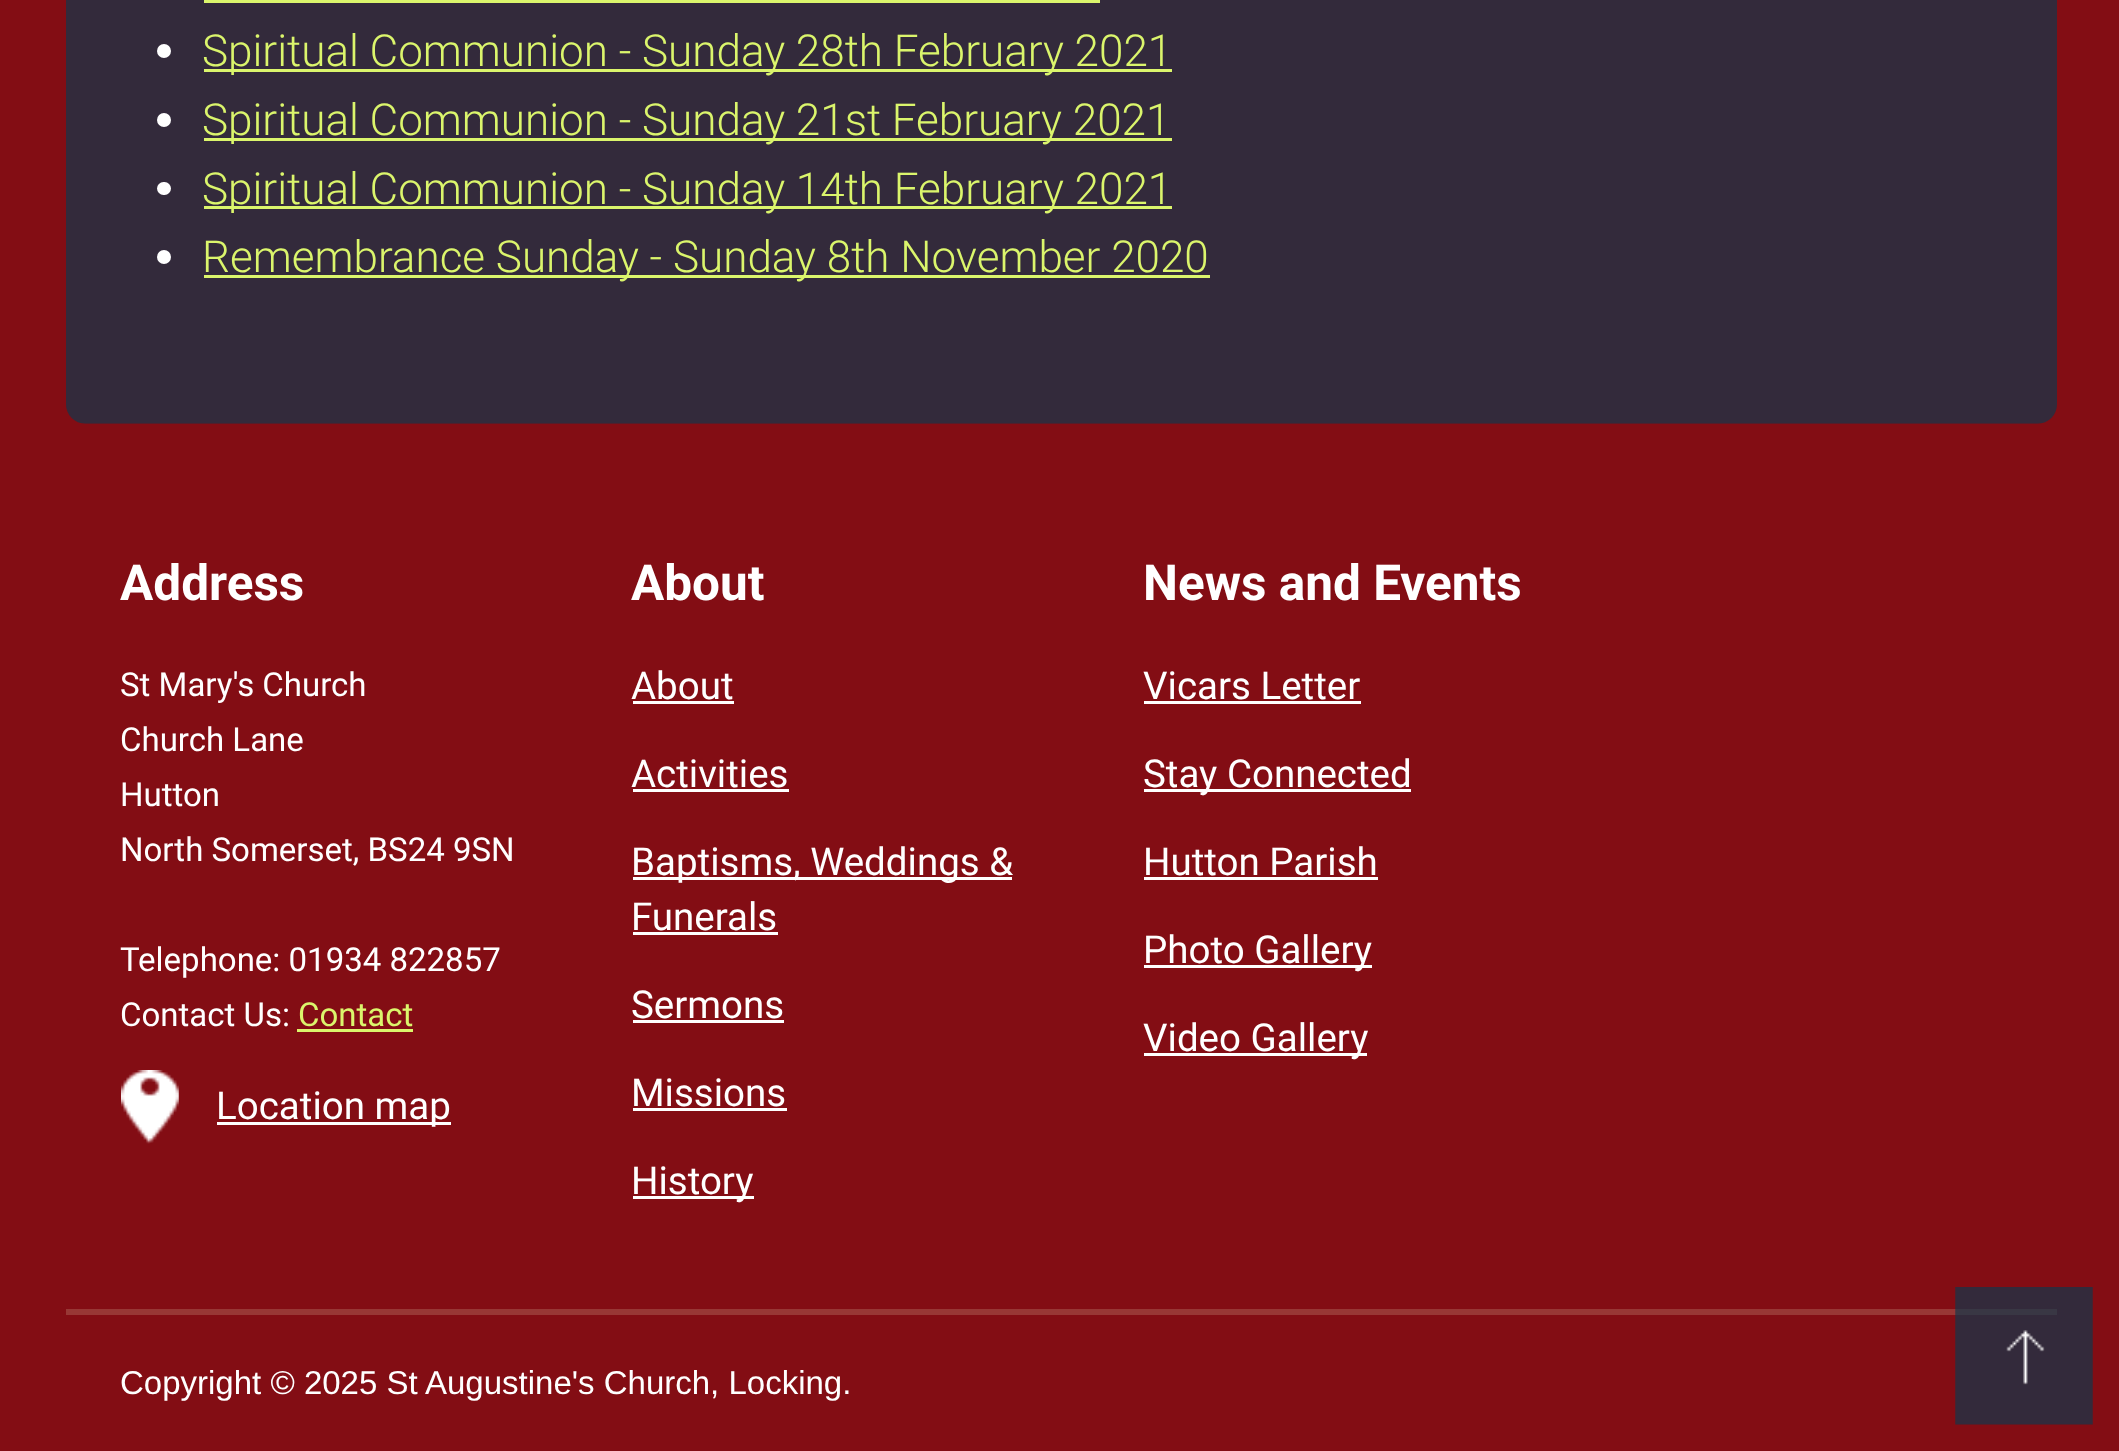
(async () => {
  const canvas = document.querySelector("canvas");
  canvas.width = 2119;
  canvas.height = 1451;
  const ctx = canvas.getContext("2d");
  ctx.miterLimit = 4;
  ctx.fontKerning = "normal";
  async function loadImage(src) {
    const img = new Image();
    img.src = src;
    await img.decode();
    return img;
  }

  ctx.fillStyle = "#830d14";
  ctx.fillRect(0, 0, 2119, 1451);
  ctx.drawImage(await loadImage("img/1.png"), 66, 0, 1991, 424);
  ctx.fillStyle = "#dbf56c";
  ctx.fillRect(204, 0, 896, 3);
  ctx.fillStyle = "#ffffff";
  ctx.beginPath();
  ctx.arc(164, 51, 7, 0, Math.PI * 2);
  ctx.fill();
  ctx.fillStyle = "#dbf56c";
  ctx.fillRect(204, 69, 968, 3);
  ctx.fillStyle = "#ffffff";
  ctx.beginPath();
  ctx.arc(164, 120, 7, 0, Math.PI * 2);
  ctx.fill();
  ctx.fillStyle = "#dbf56c";
  ctx.fillRect(204, 138, 968, 3);
  ctx.fillStyle = "#ffffff";
  ctx.beginPath();
  ctx.roundRect(157, 182, 14, 13, 6.5);
  ctx.fill();
  ctx.fillStyle = "#dbf56c";
  ctx.fillRect(204, 206, 968, 3);
  ctx.fillStyle = "#ffffff";
  ctx.beginPath();
  ctx.arc(164, 257, 7, 0, Math.PI * 2);
  ctx.fill();
  ctx.fillStyle = "#dbf56c";
  ctx.fillRect(204, 275, 1006, 3);
  ctx.fillRect(297, 1029, 116, 3);
  ctx.drawImage(await loadImage("img/2.png"), 121, 1070, 58, 74);
  for (const [x, y, w, h, color] of [
    [217, 1122, 234, 3, "#ffffff"],
    [633, 701, 101, 3, "#ffffff"],
    [633, 789, 156, 3, "#ffffff"],
    [633, 877, 379, 3, "#ffffff"],
    [633, 932, 145, 3, "#ffffff"],
    [633, 1020, 151, 3, "#ffffff"],
    [633, 1108, 154, 3, "#ffffff"],
    [633, 1196, 121, 3, "#ffffff"],
    [1144, 701, 217, 3, "#ffffff"],
    [1144, 789, 267, 3, "#ffffff"],
    [1144, 877, 234, 3, "#ffffff"],
    [1144, 965, 228, 3, "#ffffff"],
    [1144, 1053, 223, 3, "#ffffff"],
    [66, 1309, 1991, 6, "#983735"],
  ]) {
    ctx.fillStyle = color;
    ctx.fillRect(x, y, w, h);
  }
  ctx.drawImage(await loadImage("img/3.png"), 1955, 1287, 138, 138);
  ctx.font = "300 44px Roboto";
  ctx.fillStyle = "#dbf56c";
  for (const [text, x, y] of [
    ["Spiritual Communion - Sunday 28th February 2021", 202, 66],
    ["Spiritual Communion - Sunday 21st February 2021", 202, 135],
    ["Spiritual Communion - Sunday 14th February 2021", 202, 204],
    ["Remembrance Sunday - Sunday 8th November 2020", 202, 272],
  ]) {
    ctx.fillText(text, x, y);
  }
  ctx.font = "bold 49.5px Roboto";
  ctx.fillStyle = "#ffffff";
  ctx.fillText("Address", 120, 600);
  ctx.font = "33px Roboto";
  for (const [text, x, y] of [
    ["St Mary's Church", 120, 696],
    ["Church Lane", 120, 751],
    ["Hutton", 120, 806],
    ["North Somerset, BS24 9SN", 120, 861],
    ["Telephone: 01934 822857", 120, 971],
    ["Contact Us:", 120, 1026],
  ]) {
    ctx.fillText(text, x, y);
  }
  ctx.fillStyle = "#dbf56c";
  ctx.fillText("Contact", 298, 1026);
  ctx.font = "38.5px Roboto";
  ctx.fillStyle = "#ffffff";
  ctx.fillText("Location map", 216, 1119);
  ctx.font = "bold 49.5px Roboto";
  ctx.fillText("About", 631, 600);
  ctx.font = "38.5px Roboto";
  for (const [text, x, y] of [
    ["About", 631, 699],
    ["Activities", 631, 787],
    ["Baptisms, Weddings &", 631, 875],
    ["Funerals", 631, 930],
    ["Sermons", 631, 1018],
    ["Missions", 631, 1106],
    ["History", 631, 1194],
  ]) {
    ctx.fillText(text, x, y);
  }
  ctx.font = "bold 49.5px Roboto";
  ctx.fillText("News and Events", 1143, 600);
  ctx.font = "38.5px Roboto";
  for (const [text, x, y] of [
    ["Vicars Letter", 1143, 699],
    ["Stay Connected", 1143, 787],
    ["Hutton Parish", 1143, 875],
    ["Photo Gallery", 1143, 963],
    ["Video Gallery", 1143, 1051],
  ]) {
    ctx.fillText(text, x, y);
  }
  ctx.font = "33px Liberation Sans";
  ctx.fillText("Copyright © 2025 St Augustine's Church, Locking.", 120, 1394);
})();
